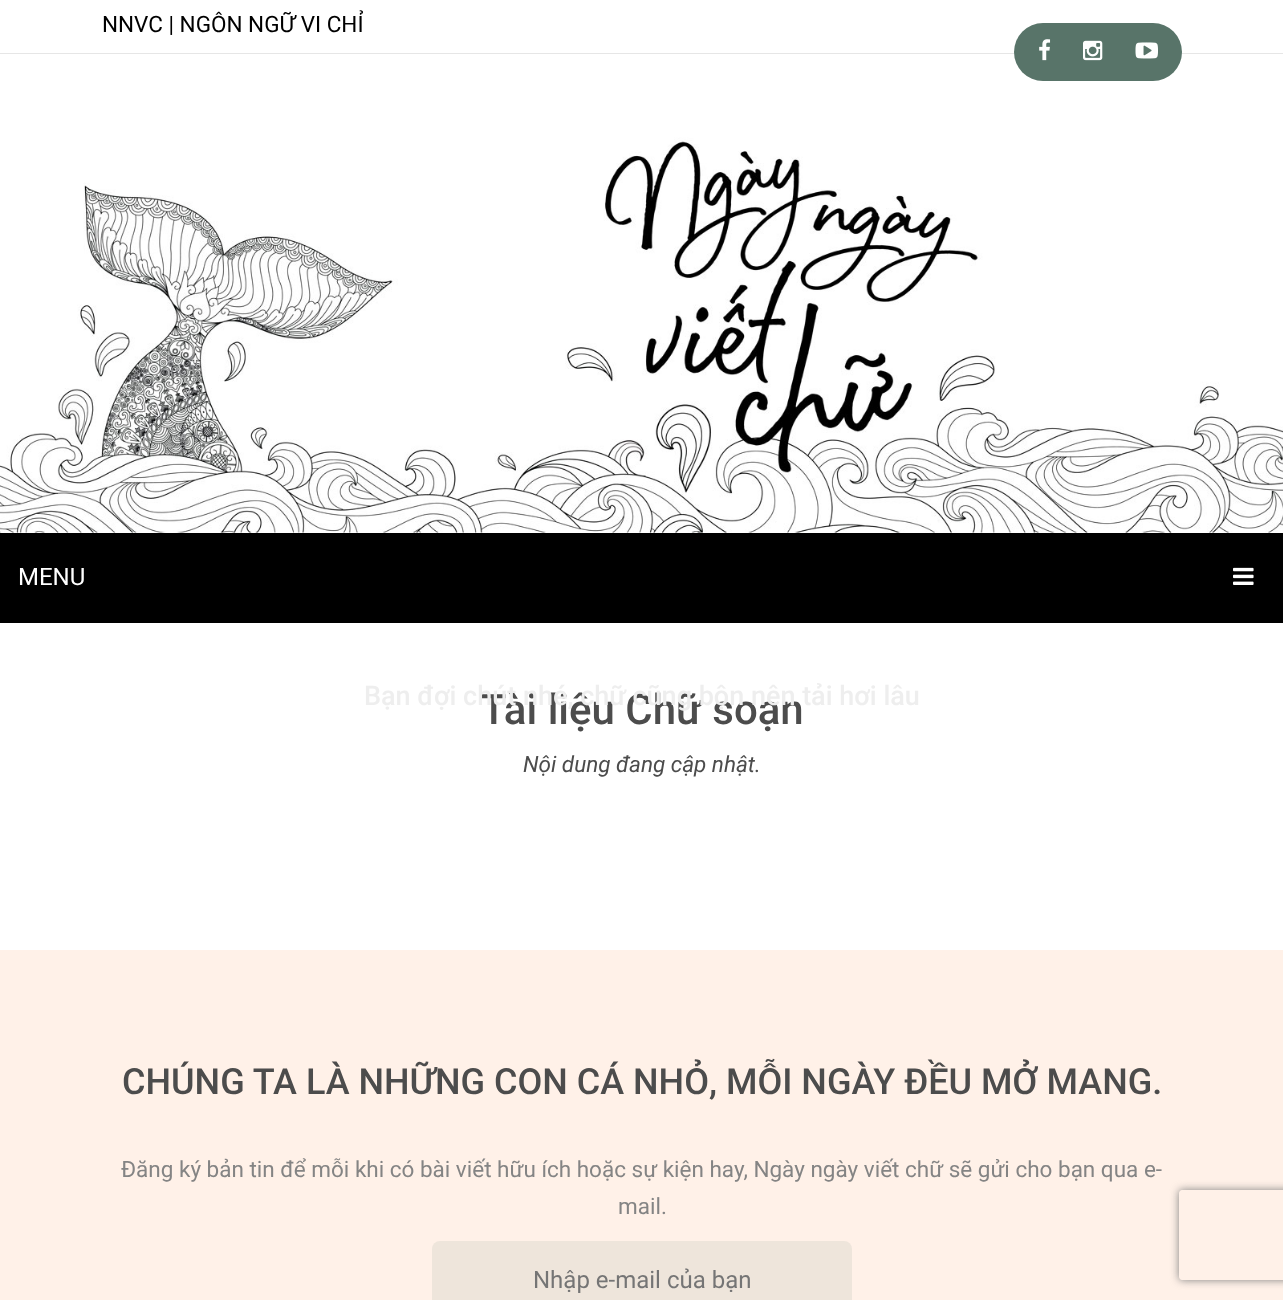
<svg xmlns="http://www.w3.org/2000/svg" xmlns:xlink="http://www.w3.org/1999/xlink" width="1283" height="1300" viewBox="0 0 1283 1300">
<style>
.cls-1{font:22.5px Roboto;fill:#000000}
.cls-2{font:24px Roboto;fill:#ffffff}
.cls-3{font:500 42px Roboto;fill:#4c4c4c}
.cls-4{font:italic 22.5px Roboto;fill:#4c4c4c}
.cls-5{font:500 36px Roboto;fill:#4c4c4c}
.cls-6{font:22.5px Roboto;fill:#848484}
.cls-7{font:24px Roboto;fill:#757575}
.cls-8{font:500 27px Roboto;fill:#eeeeee}
</style>
<defs>
<clipPath id="clip1"><path d="M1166 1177H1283V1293H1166ZM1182 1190H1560C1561.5 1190 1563 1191.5 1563 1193V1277C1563 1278.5 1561.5 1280 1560 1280H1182C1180.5 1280 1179 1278.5 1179 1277V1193C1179 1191.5 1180.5 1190 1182 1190Z" clip-rule="evenodd"/></clipPath>
</defs>
<rect width="100%" height="100%" fill="#ffffff"/>
<rect fill="#e6e6e6" x="0" y="53" width="1283" height="1"/>
<image xlink:href="image3.png" x="0" y="54" width="1283" height="479"/>
<rect fill="#587469" x="1014" y="23" width="168" height="58" rx="29"/>
<image xlink:href="image0.png" x="1039" y="39" width="12" height="22"/>
<image xlink:href="image1.png" x="1083" y="40" width="20" height="21"/>
<image xlink:href="image2.png" x="1135" y="42" width="23" height="17"/>
<rect fill="#000000" x="0" y="533" width="1283" height="90"/>
<image xlink:href="image4.png" x="1233" y="567" width="21" height="18"/>
<rect fill="#fff1e8" x="0" y="950" width="1283" height="350"/>
<rect fill="#eee5db" x="432" y="1241" width="420" height="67" rx="8"/>
<g clip-path="url(#clip1)">
<rect fill="#808080" filter="blur(4px)" x="1179" y="1190" width="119" height="90" rx="3"/>
</g>
<text class="cls-1" x="102" y="32">NNVC | NGÔN NGỮ VI CHỈ</text>
<text class="cls-2" x="18" y="585">MENU</text>
<text class="cls-3" x="481" y="724">Tài liệu Chữ soạn</text>
<text class="cls-4" x="523" y="772">Nội dung đang cập nhật.</text>
<text class="cls-5" x="122" y="1094">CHÚNG TA LÀ NHỮNG CON CÁ NHỎ, MỖI NGÀY ĐỀU MỞ MANG.</text>
<text class="cls-6" x="121" y="1177">Đăng ký bản tin để mỗi khi có bài viết hữu ích hoặc sự kiện hay, Ngày ngày viết chữ sẽ gửi cho bạn qua e-</text>
<text class="cls-6" x="618" y="1214">mail.</text>
<text class="cls-7" x="533" y="1288">Nhập e-mail của bạn</text>
<text class="cls-8" x="364" y="705">Bạn đợi chút nhé, chữ cũng bộn nên tải hơi lâu</text>
</svg>
